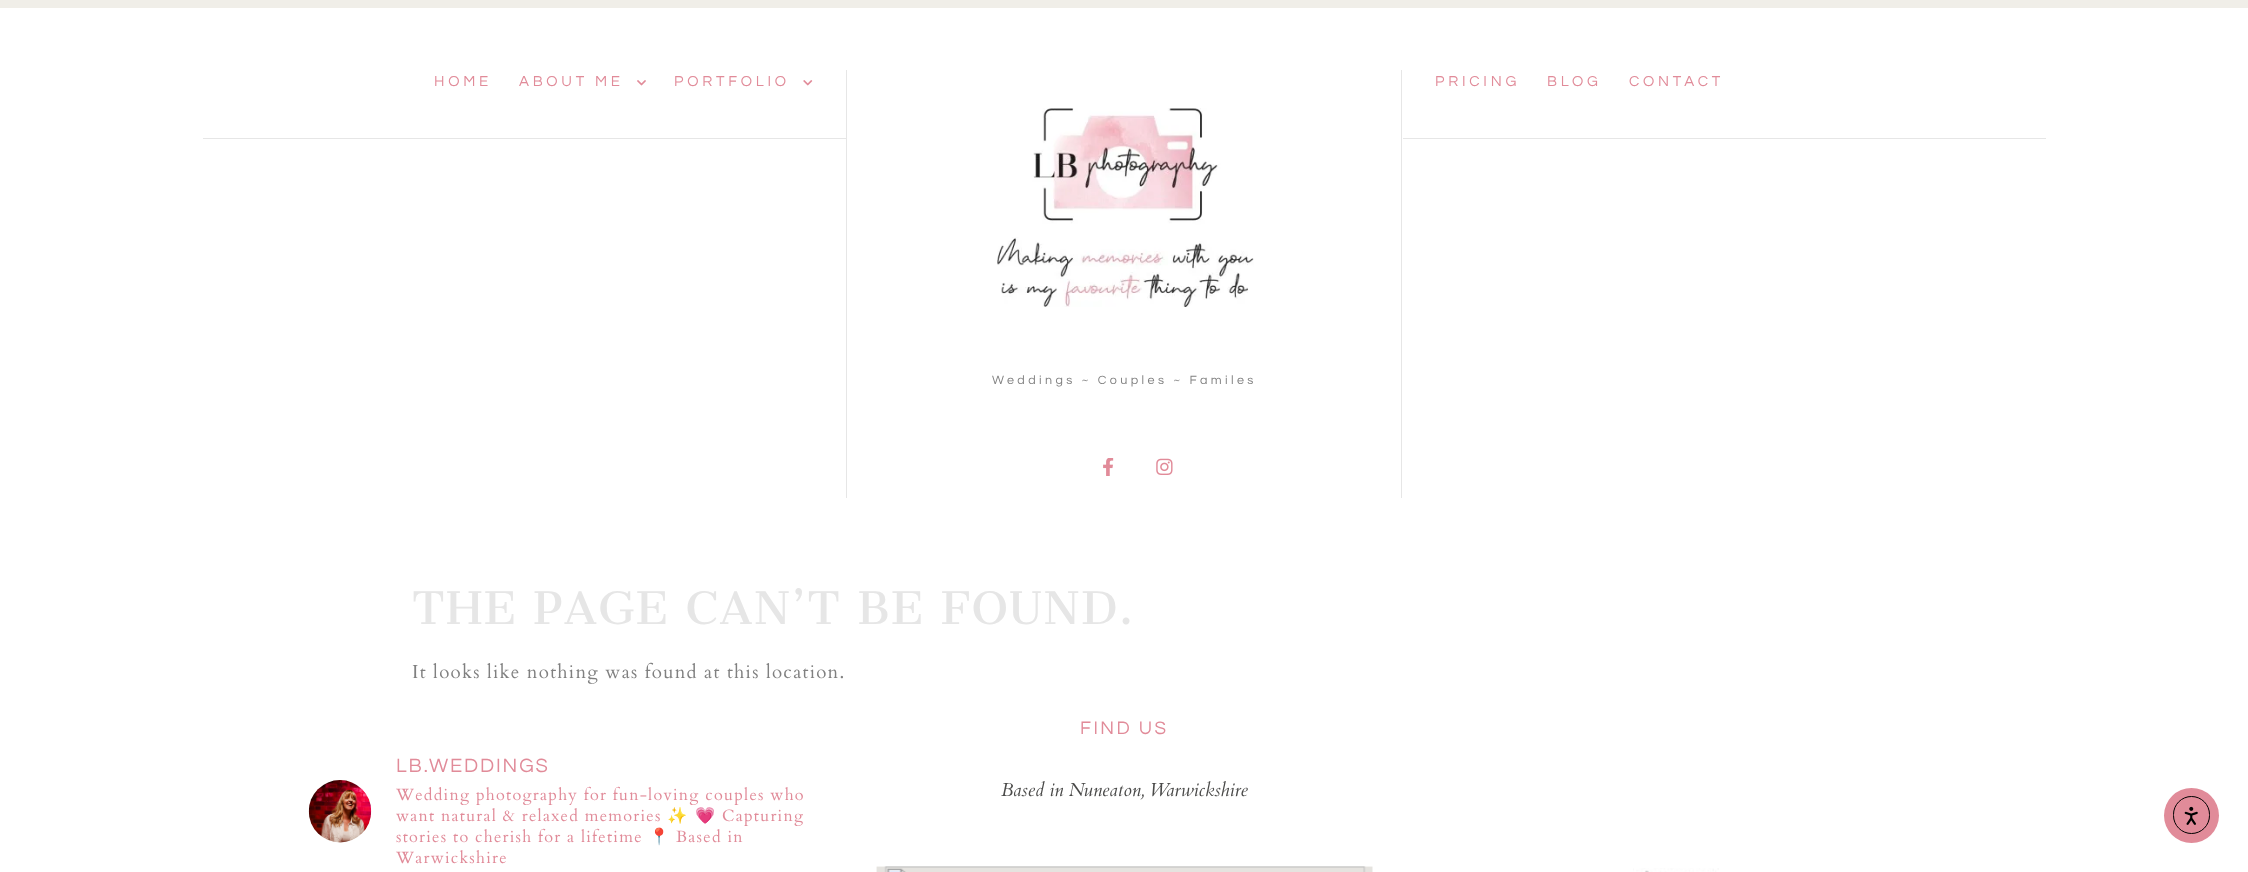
<svg xmlns="http://www.w3.org/2000/svg" xmlns:xlink="http://www.w3.org/1999/xlink" width="2248" height="872" viewBox="0 0 2248 872">
<style>
.cls-1{font:15px Questrial;letter-spacing:3.75px;fill:#e18b99}
.cls-2{font:12.5px Questrial;letter-spacing:3.4px;fill:#808080}
.cls-3{font:43.75px Cantata One;letter-spacing:1.25px;fill:#e6e6e6}
.cls-4{font:18.75px Cardo;letter-spacing:1.25px;fill:#808080}
.cls-5{font:20px Questrial;letter-spacing:1.9px;fill:#e18b99}
.cls-6{font:16.25px Cardo;letter-spacing:1.25px;fill:#e18b99}
.cls-7{font:16.25px Noto Color Emoji;letter-spacing:1.25px;fill:#e18b99}
.cls-8{font:18.75px Questrial;letter-spacing:2.5px;fill:#e18b99}
.cls-9{font:italic 18.75px Cardo;fill:#4a4a49}
</style>
<rect width="100%" height="100%" fill="#ffffff"/>
<rect fill="#f0eee8" x="0" y="0" width="2248" height="8"/>
<rect fill="#e6e6e6" x="846" y="70" width="1" height="428"/>
<rect fill="#e6e6e6" x="203" y="138" width="643" height="1"/>
<image xlink:href="image0.png" x="637" y="80" width="9" height="6"/>
<image xlink:href="image1.png" x="803" y="80" width="10" height="6"/>
<rect fill="#e6e6e6" x="1401" y="70" width="1" height="428"/>
<rect fill="#e6e6e6" x="1403" y="138" width="643" height="1"/>
<image xlink:href="image2.png" x="997" y="108" width="257" height="199"/>
<image xlink:href="image3.png" x="1103" y="458" width="11" height="18"/>
<image xlink:href="image4.png" x="1156" y="458" width="17" height="17"/>
<image xlink:href="image5.png" x="308" y="780" width="64" height="63"/>
<image xlink:href="image6.png" x="876" y="866" width="497" height="6"/>
<image xlink:href="image7.png" x="1633" y="868" width="86" height="4"/>
<circle fill="#e18b99" cx="2191.5" cy="815.5" r="27.5"/>
<rect fill="none" stroke="#000000" x="2173.5" y="796.5" width="36" height="37" rx="18"/>
<image xlink:href="image8.png" x="2184" y="806" width="14" height="19"/>
<text class="cls-1" x="434" y="86">HOME</text>
<text class="cls-1" x="519" y="86">ABOUT ME</text>
<text class="cls-1" x="674" y="86">PORTFOLIO</text>
<text class="cls-1" x="1435" y="86">PRICING</text>
<text class="cls-1" x="1547" y="86">BLOG</text>
<text class="cls-1" x="1629" y="86">CONTACT</text>
<text class="cls-2" x="992" y="384">Weddings ~ Couples ~ Familes</text>
<text class="cls-3" x="412" y="624">THE PAGE CAN’T BE FOUND.</text>
<text class="cls-4" x="412" y="678">It looks like nothing was found at this location.</text>
<text class="cls-5" x="396" y="772">LB.WEDDINGS</text>
<text class="cls-6"><tspan x="396" y="800">Wedding photography for fun-loving couples who</tspan><tspan x="396" y="821">want natural &amp; relaxed memories</tspan></text>
<text class="cls-7" x="667" y="821">✨</text>
<text class="cls-7" x="695" y="821">💗</text>
<text class="cls-6" x="722" y="821">Capturing</text>
<text class="cls-6" x="396" y="842">stories to cherish for a lifetime</text>
<text class="cls-7" x="649" y="842">📍</text>
<text class="cls-6" x="676" y="842">Based in</text>
<text class="cls-6" x="396" y="863">Warwickshire</text>
<text class="cls-8" x="1080" y="734">FIND US</text>
<text class="cls-9" x="1001" y="796">Based in Nuneaton, Warwickshire</text>
</svg>
